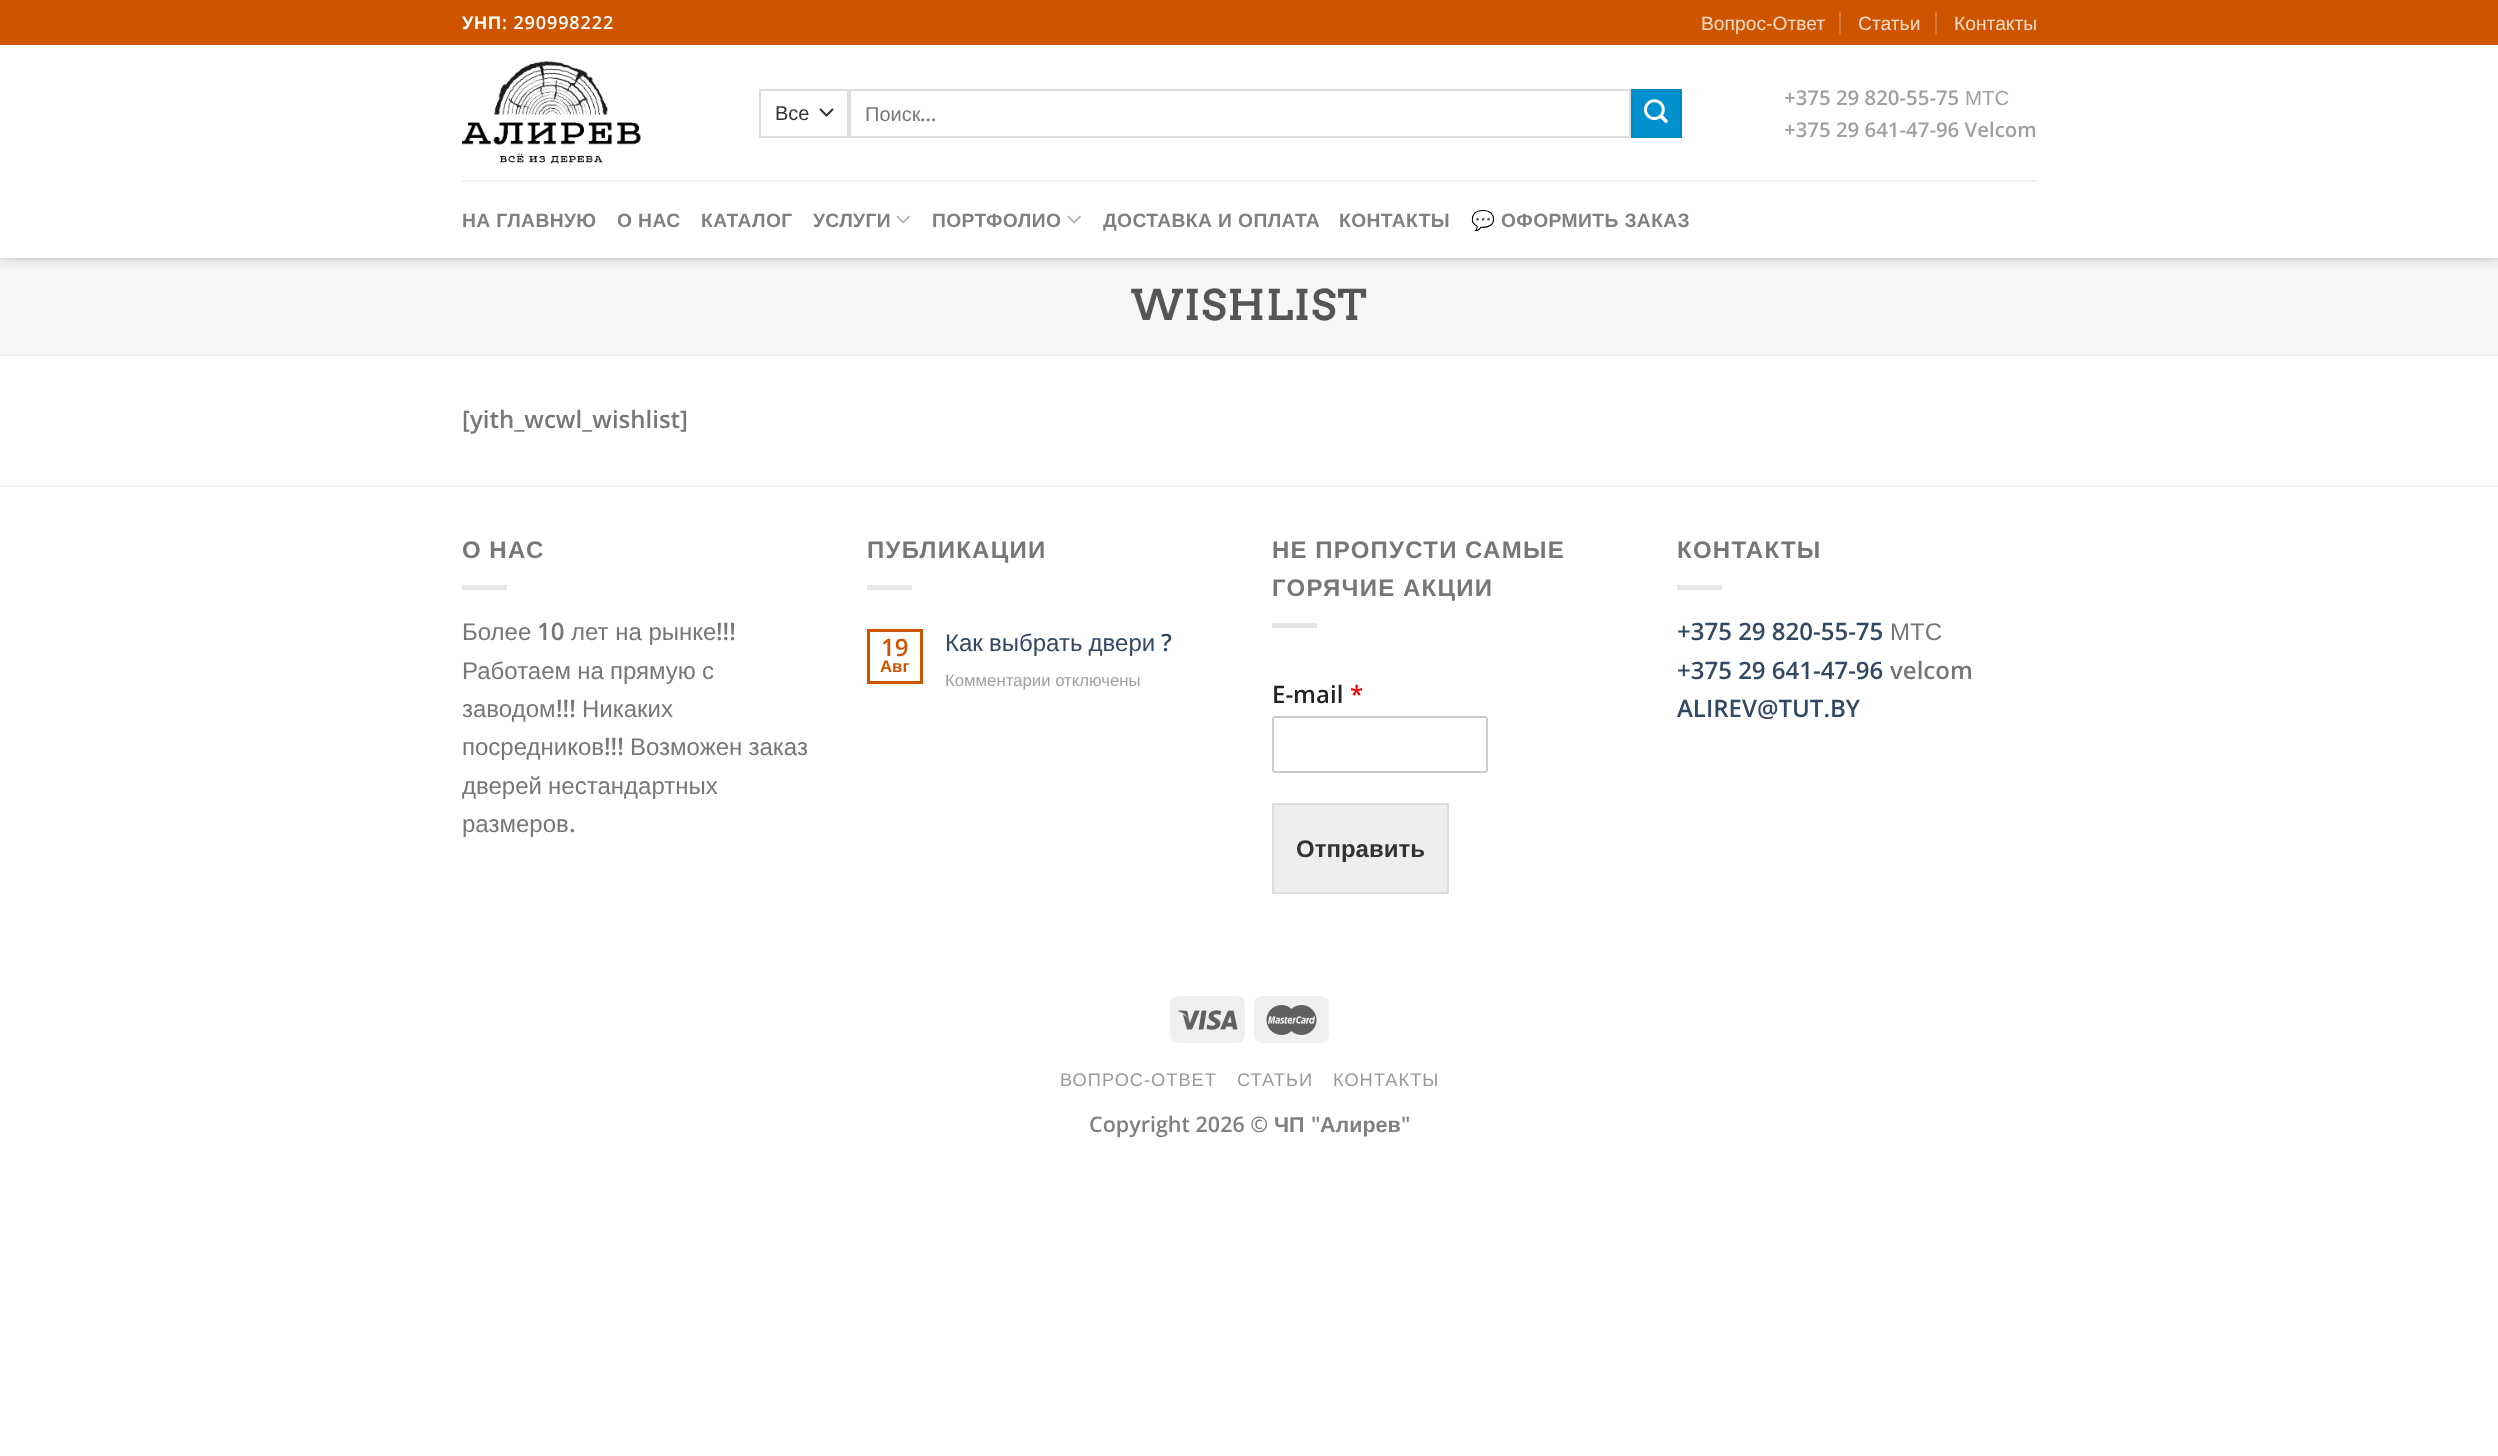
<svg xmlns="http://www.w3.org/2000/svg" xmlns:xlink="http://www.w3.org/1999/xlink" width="2498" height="1456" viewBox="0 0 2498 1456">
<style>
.cls-1{font:bold 18px Liberation Sans;letter-spacing:0.9px;fill:#ffffff}
.cls-2{font:600 18px Open Sans;letter-spacing:0.9px;fill:#ffffff}
.cls-3{font:19.25px Liberation Sans;fill:#f5ddcc}
.cls-4{font:20px Liberation Sans;fill:#333333}
.cls-5{font:20px Liberation Sans;fill:#777777}
.cls-6{font:600 20px Open Sans;fill:#777777}
.cls-7{font:600 20.4px Open Sans;fill:#a0a0a0}
.cls-8{font:20.4px Liberation Sans;fill:#a0a0a0}
.cls-9{font:bold 19.25px Liberation Sans;letter-spacing:0.4px;fill:#808080}
.cls-10{font:bold 19.25px Noto Color Emoji;letter-spacing:0.4px;fill:#808080}
.cls-11{font:bold 40.75px Arvo;letter-spacing:2px;fill:#555555}
.cls-12{font:600 24px Open Sans;fill:#777777}
.cls-13{font:bold 24px Liberation Sans;letter-spacing:1.25px;fill:#777777}
.cls-14{font:24px Liberation Sans;fill:#777777}
.cls-15{font:600 24px Open Sans;fill:#ce5400}
.cls-16{font:bold 16.75px Liberation Sans;fill:#ce5400}
.cls-17{font:24px Liberation Sans;fill:#334862}
.cls-18{font:600 24px Open Sans;fill:#334862}
.cls-19{font:16.75px Liberation Sans;fill:#a0a0a0}
.cls-20{font:600 24px Open Sans;fill:#222222}
.cls-21{font:600 24px Open Sans;fill:#ff0000}
.cls-22{font:bold 24px Liberation Sans;fill:#333333}
.cls-23{font:18.25px Liberation Sans;letter-spacing:1px;fill:#999999}
.cls-24{font:600 21.5px Open Sans;fill:#808080}
.cls-25{font:bold 21.5px Liberation Sans;fill:#808080}
</style>
<defs>
<clipPath id="clip1"><rect x="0" y="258" width="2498" height="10"/></clipPath>
</defs>
<rect width="100%" height="100%" fill="#ffffff"/>
<rect fill="#f7f7f7" x="0" y="260" width="2498" height="94"/>
<rect fill="#ececec" x="0" y="258" width="2498" height="2"/>
<g clip-path="url(#clip1)">
<rect fill="#000000" fill-opacity="0.15" filter="blur(7.5px)" x="2" y="2" width="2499" height="258"/>
</g>
<rect fill="#ce5400" x="0" y="0" width="2498" height="45"/>
<rect fill="#d87633" x="1839" y="12" width="2" height="23"/>
<rect fill="#d87633" x="1935" y="12" width="2" height="23"/>
<image xlink:href="image0.png" x="462" y="61" width="179" height="103"/>
<path fill="none" stroke="#333333" stroke-width="2" stroke-linecap="round" stroke-linejoin="round" d="M820.5 109.5L826.5 115.5L832.5 109.5"/>
<rect fill="none" stroke="#dddddd" stroke-width="2" x="760" y="90" width="88" height="47"/>
<rect fill="none" stroke="#dddddd" stroke-width="2" x="850" y="90" width="780" height="47"/>
<rect fill="#0091ce" stroke="#008ac4" stroke-width="2" x="1632" y="90" width="49" height="47"/>
<image xlink:href="image1.png" x="1644" y="99" width="24" height="24"/>
<rect fill="#f1f1f1" x="462" y="180" width="1575" height="2"/>
<image xlink:href="image2.png" x="896" y="215" width="14" height="9"/>
<image xlink:href="image2.png" x="1067" y="215" width="14" height="9"/>
<rect fill="#ececec" x="0" y="354" width="2498" height="2"/>
<rect fill="#f2f2f2" x="0" y="485" width="2498" height="2"/>
<rect fill="#e6e6e6" x="462" y="585" width="45" height="5"/>
<rect fill="#e6e6e6" x="867" y="585" width="45" height="5"/>
<rect fill="none" stroke="#ce5400" stroke-width="3" x="868.5" y="630.5" width="53" height="52"/>
<rect fill="#e6e6e6" x="1272" y="623" width="45" height="5"/>
<rect fill="none" stroke="#cccccc" stroke-width="2" x="1273" y="717" width="214" height="55" rx="2"/>
<rect fill="#eeeeee" stroke="#dddddd" stroke-width="2" x="1273" y="804" width="175" height="89"/>
<rect fill="#e6e6e6" x="1677" y="585" width="45" height="5"/>
<rect fill="#f0f0f0" x="1170" y="996" width="75" height="47" rx="8"/>
<image xlink:href="image3.png" x="1178" y="1010" width="60" height="20"/>
<rect fill="#f0f0f0" x="1254" y="996" width="75" height="47" rx="8"/>
<image xlink:href="image4.png" x="1266" y="1005" width="51" height="30"/>
<text class="cls-1" x="462" y="29">УНП</text>
<text class="cls-2" x="502" y="29">: 290998222</text>
<text class="cls-3" x="1701" y="30">Вопрос-Ответ</text>
<text class="cls-3" x="1858" y="30">Статьи</text>
<text class="cls-3" x="1954" y="30">Контакты</text>
<text class="cls-4" x="775" y="120">Все</text>
<text class="cls-5" x="865" y="121">Поиск</text>
<text class="cls-6" x="920" y="121">…</text>
<text class="cls-7" x="1784" y="105">+375 29 820-55-75</text>
<text class="cls-8" x="1965" y="105">МТС</text>
<text class="cls-7" x="1784" y="137">+375 29 641-47-96 Velcom</text>
<text class="cls-9" x="462" y="227">НА ГЛАВНУЮ</text>
<text class="cls-9" x="617" y="227">О НАС</text>
<text class="cls-9" x="701" y="227">КАТАЛОГ</text>
<text class="cls-9" x="813" y="227">УСЛУГИ</text>
<text class="cls-9" x="932" y="227">ПОРТФОЛИО</text>
<text class="cls-9" x="1103" y="227">ДОСТАВКА И ОПЛАТА</text>
<text class="cls-9" x="1339" y="227">КОНТАКТЫ</text>
<text class="cls-10" x="1471" y="227">💬</text>
<text class="cls-9" x="1501" y="227">ОФОРМИТЬ ЗАКАЗ</text>
<text class="cls-11" x="1131" y="320">WISHLIST</text>
<text class="cls-12" x="462" y="428">[yith_wcwl_wishlist]</text>
<text class="cls-13" x="462" y="558" word-spacing="-0.5">О НАС</text>
<text class="cls-14" x="462" y="640">Более</text>
<text class="cls-12" x="537" y="640">10</text>
<text class="cls-14" x="571" y="640">лет на рынке</text>
<text class="cls-12" x="716" y="640">!!!</text>
<text class="cls-14"><tspan x="462" y="679" word-spacing="-0.5">Работаем на прямую с</tspan><tspan x="462" y="717">заводом</tspan></text>
<text class="cls-12" x="556" y="717">!!!</text>
<text class="cls-14" x="582" y="717">Никаких</text>
<text class="cls-14" x="462" y="755">посредников</text>
<text class="cls-12" x="604" y="755">!!!</text>
<text class="cls-14" x="630" y="755" word-spacing="-0.5">Возможен заказ</text>
<text class="cls-14"><tspan x="462" y="794" word-spacing="-0.5">дверей нестандартных</tspan><tspan x="462" y="832">размеров</tspan></text>
<text class="cls-12" x="569" y="832">.</text>
<text class="cls-13" x="867" y="558">ПУБЛИКАЦИИ</text>
<text class="cls-15" x="881" y="656">19</text>
<text class="cls-16" x="880" y="672">Авг</text>
<text class="cls-17" x="945" y="651" word-spacing="-0.5">Как выбрать двери</text>
<text class="cls-18" x="1161" y="651">?</text>
<text class="cls-19" x="945" y="686">Комментарии отключены</text>
<text class="cls-13"><tspan x="1272" y="558" word-spacing="-0.5">НЕ ПРОПУСТИ САМЫЕ</tspan><tspan x="1272" y="596" word-spacing="-0.5">ГОРЯЧИЕ АКЦИИ</tspan></text>
<text class="cls-20" x="1272" y="703">E-mail</text>
<text class="cls-21" x="1350" y="703">*</text>
<text class="cls-22" x="1296" y="857">Отправить</text>
<text class="cls-13" x="1677" y="558">КОНТАКТЫ</text>
<text class="cls-18" x="1677" y="640">+375 29 820-55-75</text>
<text class="cls-14" x="1890" y="640">МТС</text>
<text class="cls-18" x="1677" y="679">+375 29 641-47-96</text>
<text class="cls-12" x="1890" y="679">velcom</text>
<text class="cls-18" x="1677" y="717">ALIREV@TUT.BY</text>
<text class="cls-23" x="1060" y="1086">ВОПРОС-ОТВЕТ</text>
<text class="cls-23" x="1237" y="1086">СТАТЬИ</text>
<text class="cls-23" x="1333" y="1086">КОНТАКТЫ</text>
<text class="cls-24" x="1089" y="1132">Copyright 2026 ©</text>
<text class="cls-25" x="1274" y="1132">ЧП</text>
<text class="cls-24" x="1311" y="1132">"</text>
<text class="cls-25" x="1320" y="1132">Алирев</text>
<text class="cls-24" x="1401" y="1132">"</text>
</svg>
